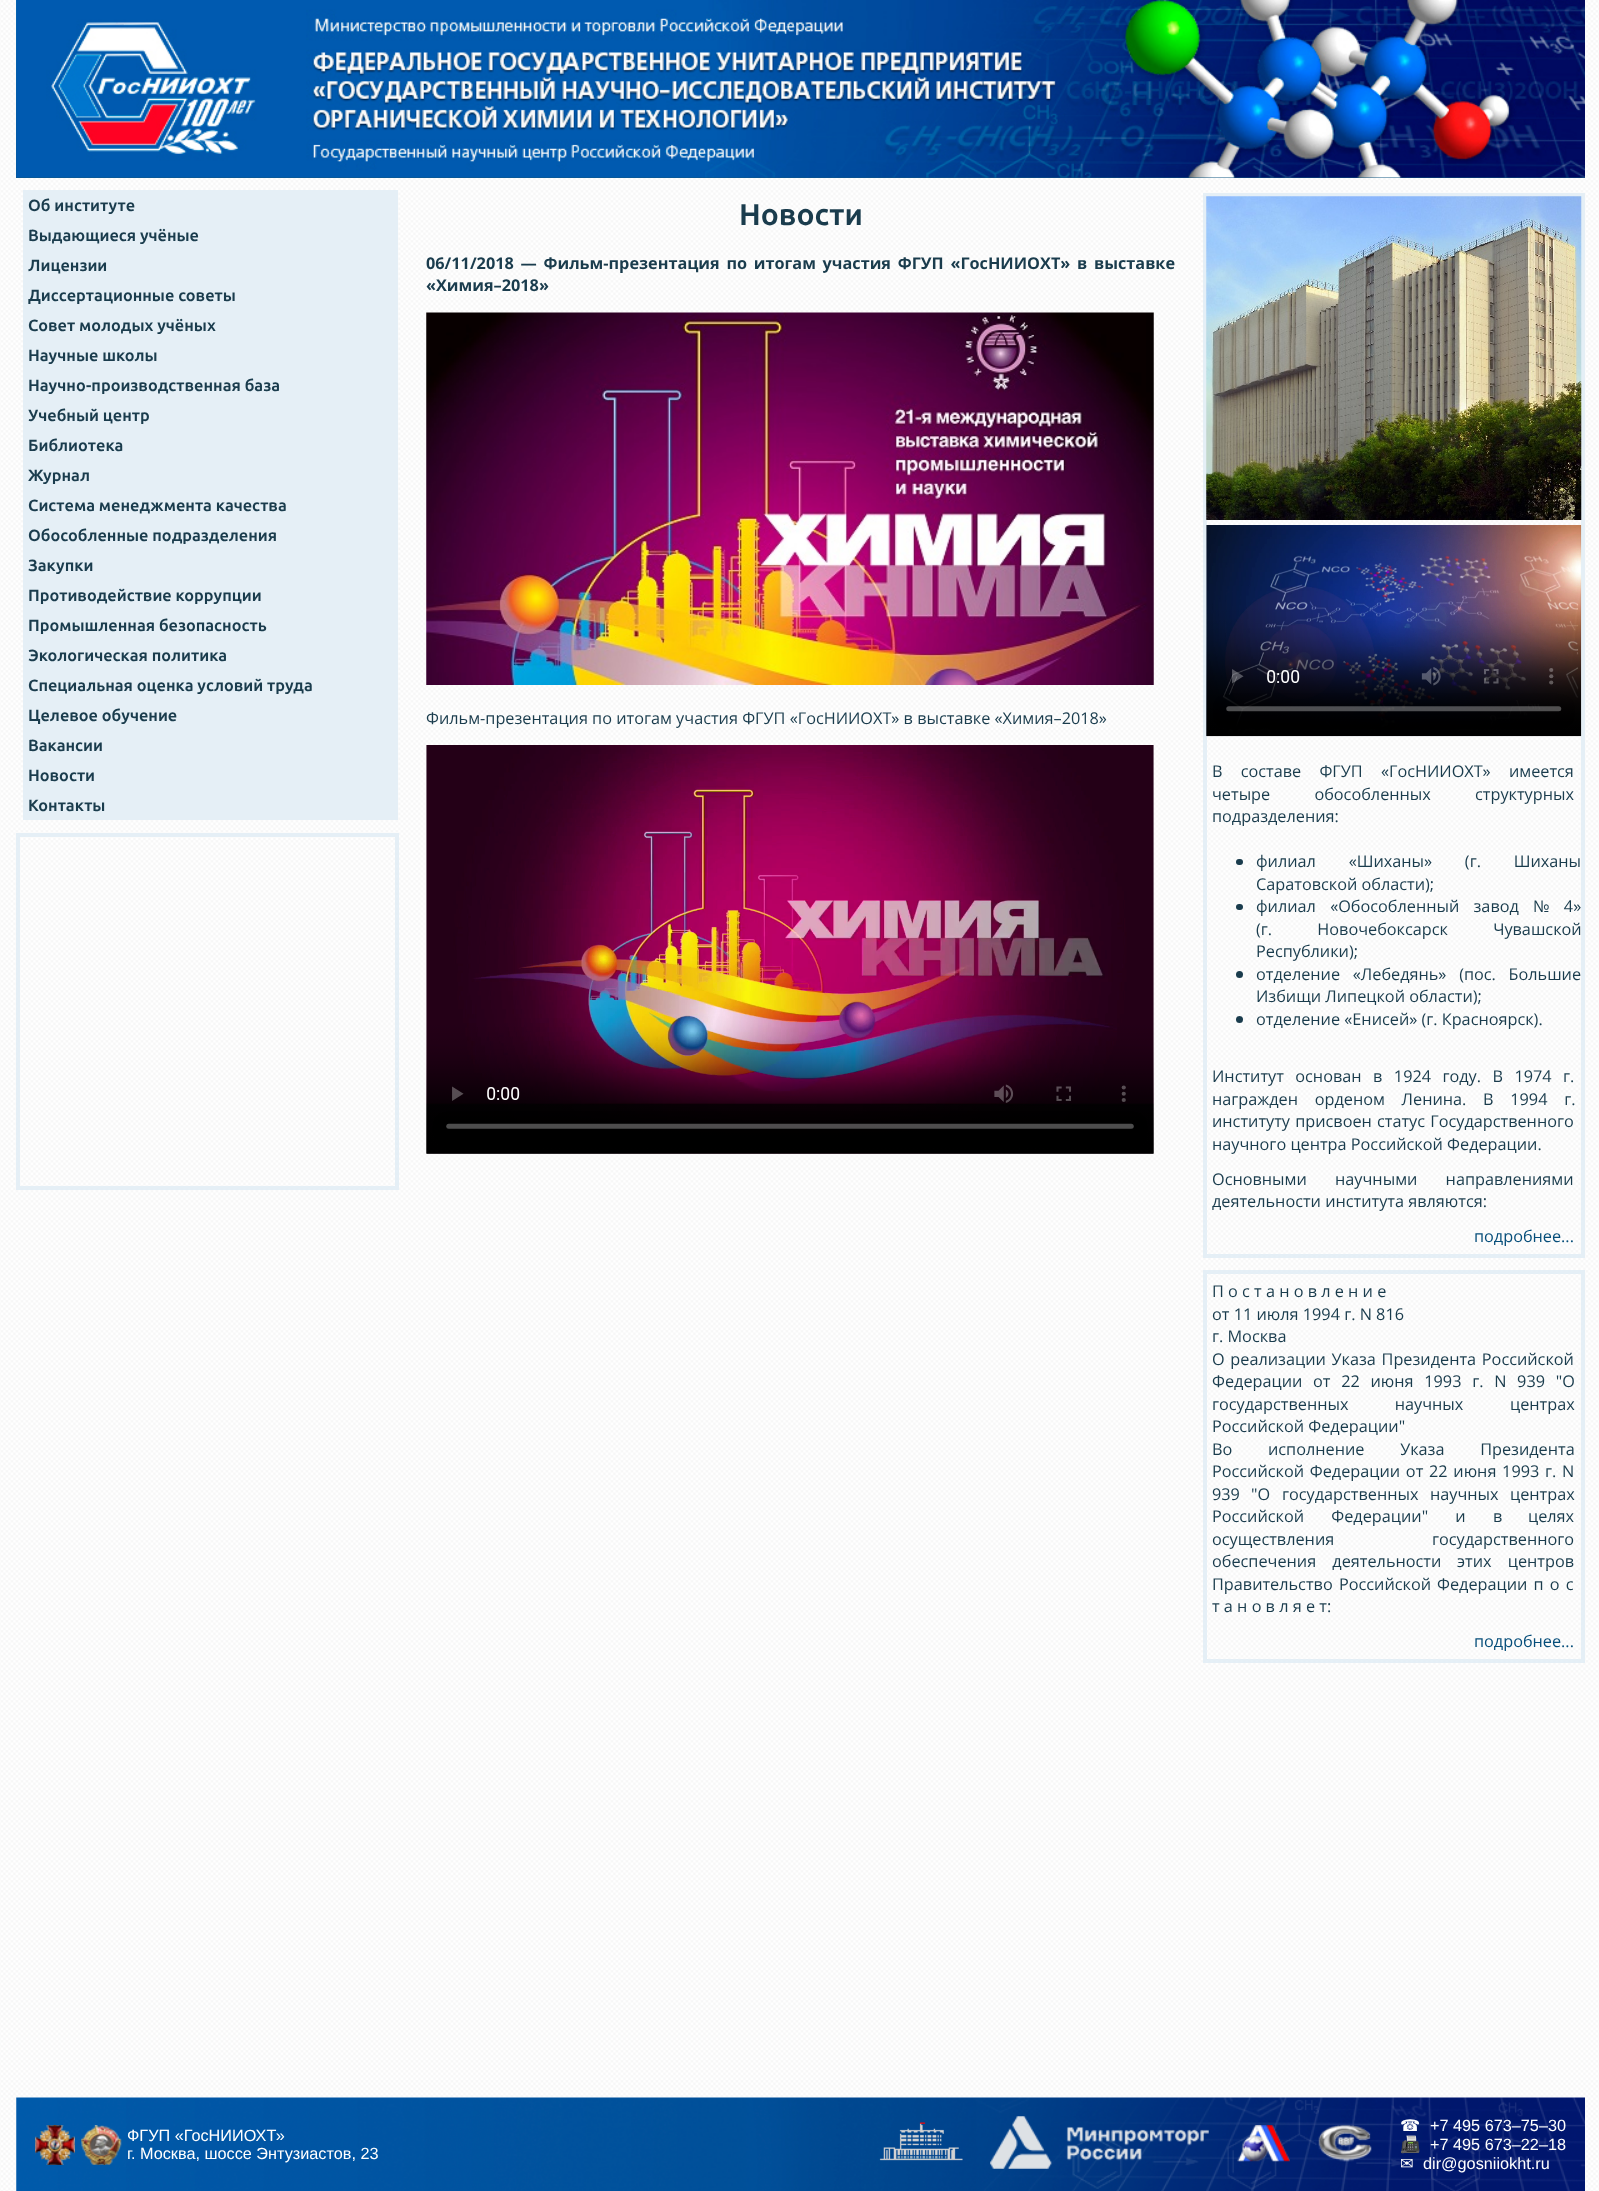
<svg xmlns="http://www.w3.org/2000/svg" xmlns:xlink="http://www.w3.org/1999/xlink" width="1599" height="2191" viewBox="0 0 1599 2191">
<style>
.cls-1{font:bold 16.25px Ubuntu;fill:#1a3c4d}
.cls-2{font:bold 30px Ubuntu;fill:#1a3c4d}
.cls-3{font:bold 16.25px Open Sans;fill:#1a3c4d}
.cls-4{font:16.25px Open Sans;fill:#1a3c4d}
.cls-5{font:16.25px Open Sans;fill:#064e7a}
.cls-6{font:16.25px Liberation Sans;fill:#ffffff}
.cls-7{font:16.25px DejaVu Sans;fill:#ffffff}
.cls-8{font:16.25px Noto Color Emoji;fill:#ffffff}
</style>
<defs>
<linearGradient id="g1" gradientUnits="userSpaceOnUse" x1="801" y1="178" x2="801" y2="0"><stop offset="0" stop-color="#105681"/><stop offset="1" stop-color="#1b7fb2"/></linearGradient>
</defs>
<rect width="100%" height="100%" fill="#ffffff"/>
<image xlink:href="image0.png" x="0" y="0" width="1599" height="2191"/>
<rect fill="url(#g1)" x="16" y="0" width="1569" height="178"/>
<image xlink:href="image1.png" x="16" y="0" width="1569" height="178"/>
<rect fill="#e5eff6" x="23" y="190" width="375" height="630"/>
<rect fill="none" stroke="#e5eff6" stroke-width="4" x="18" y="835" width="379" height="353"/>
<image xlink:href="image2.png" x="426" y="312" width="728" height="373"/>
<image xlink:href="image3.png" x="426" y="745" width="728" height="409"/>
<rect fill="none" stroke="#e5eff6" stroke-width="4" x="1205" y="195" width="378" height="1061"/>
<image xlink:href="image4.png" x="1206" y="196" width="376" height="324"/>
<image xlink:href="image5.png" x="1206" y="525" width="376" height="212"/>
<rect fill="#1a3c4d" x="1236" y="859" width="7" height="6" rx="3"/>
<rect fill="#1a3c4d" x="1236" y="904" width="7" height="6" rx="3"/>
<circle fill="#1a3c4d" cx="1239.5" cy="974.5" r="3.5"/>
<circle fill="#1a3c4d" cx="1239.5" cy="1019.5" r="3.5"/>
<rect fill="none" stroke="#e5eff6" stroke-width="4" x="1205" y="1272" width="378" height="389"/>
<image xlink:href="image6.png" x="16" y="2097" width="1569" height="94"/>
<image xlink:href="image7.png" x="35" y="2125" width="40" height="40"/>
<image xlink:href="image8.png" x="81" y="2125" width="41" height="40"/>
<image xlink:href="image9.png" x="879" y="2122" width="84" height="39"/>
<image xlink:href="image10.png" x="990" y="2116" width="219" height="53"/>
<image xlink:href="image11.png" x="1237" y="2125" width="53" height="37"/>
<image xlink:href="image12.png" x="1318" y="2124" width="54" height="38"/>
<text class="cls-1"><tspan x="28" y="211">Об институте</tspan><tspan x="28" y="241">Выдающиеся учёные</tspan><tspan x="28" y="271">Лицензии</tspan><tspan x="28" y="301">Диссертационные советы</tspan><tspan x="28" y="331">Совет молодых учёных</tspan><tspan x="28" y="361">Научные школы</tspan><tspan x="28" y="391">Научно-производственная база</tspan><tspan x="28" y="421">Учебный центр</tspan><tspan x="28" y="451">Библиотека</tspan><tspan x="28" y="481">Журнал</tspan><tspan x="28" y="511">Система менеджмента качества</tspan><tspan x="28" y="541">Обособленные подразделения</tspan><tspan x="28" y="571">Закупки</tspan><tspan x="28" y="601">Противодействие коррупции</tspan><tspan x="28" y="631">Промышленная безопасность</tspan><tspan x="28" y="661">Экологическая политика</tspan><tspan x="28" y="691">Специальная оценка условий труда</tspan><tspan x="28" y="721">Целевое обучение</tspan><tspan x="28" y="751">Вакансии</tspan><tspan x="28" y="781">Новости</tspan><tspan x="28" y="811">Контакты</tspan></text>
<text class="cls-2" x="739" y="225">Новости</text>
<text class="cls-3"><tspan x="426" y="269" word-spacing="2.5">06/11/2018 — Фильм-презентация по итогам участия ФГУП «ГосНИИОХТ» в выставке</tspan><tspan x="426" y="291">«Химия–2018»</tspan></text>
<text class="cls-4" x="426" y="724">Фильм-презентация по итогам участия ФГУП «ГосНИИОХТ» в выставке «Химия–2018»</text>
<text class="cls-4"><tspan x="1212" y="777" word-spacing="14">В составе ФГУП «ГосНИИОХТ» имеется</tspan><tspan x="1212" y="800" word-spacing="40">четыре обособленных структурных</tspan><tspan x="1212" y="822">подразделения:</tspan></text>
<text class="cls-4"><tspan x="1256" y="867" word-spacing="28.5">филиал «Шиханы» (г. Шиханы</tspan><tspan x="1256" y="890">Саратовской области);</tspan><tspan x="1256" y="912" word-spacing="10">филиал «Обособленный завод № 4»</tspan><tspan x="1256" y="935" word-spacing="41">(г. Новочебоксарск Чувашской</tspan><tspan x="1256" y="957">Республики);</tspan><tspan x="1256" y="980" word-spacing="8.5">отделение «Лебедянь» (пос. Большие</tspan><tspan x="1256" y="1002">Избищи Липецкой области);</tspan><tspan x="1256" y="1025">отделение «Енисей» (г. Красноярск).</tspan></text>
<text class="cls-4"><tspan x="1212" y="1082" word-spacing="7.25">Институт основан в 1924 году. В 1974 г.</tspan><tspan x="1212" y="1105" word-spacing="12.5">награжден орденом Ленина. В 1994 г.</tspan><tspan x="1212" y="1127" word-spacing="1">институту присвоен</tspan></text>
<text class="cls-4" x="1377" y="1127" word-spacing="1">статус Государственного</text>
<text class="cls-4" x="1212" y="1150">научного центра Российской Федерации.</text>
<text class="cls-4"><tspan x="1212" y="1185" word-spacing="24">Основными научными направлениями</tspan><tspan x="1212" y="1207">деятельности института являются:</tspan></text>
<text class="cls-5" x="1474" y="1242">подробнее...</text>
<text class="cls-4"><tspan x="1212" y="1297">П о с т а н о в л е н и е</tspan><tspan x="1212" y="1320">от 11 июля 1994 г. N 816</tspan><tspan x="1212" y="1342">г. Москва</tspan><tspan x="1212" y="1365" word-spacing="1.5">О реализации Указа Президента Российской</tspan><tspan x="1212" y="1387">Федерации</tspan></text>
<text class="cls-4" x="1313" y="1387" word-spacing="6.5">от 22 июня 1993 г. N 939 "О</text>
<text class="cls-4" x="1212" y="1410" word-spacing="42">государственных научных</text>
<text class="cls-4" x="1510" y="1410">центрах</text>
<text class="cls-4"><tspan x="1212" y="1432">Российской Федерации"</tspan><tspan x="1212" y="1455" word-spacing="31.5">Во исполнение Указа Президента</tspan><tspan x="1212" y="1477" word-spacing="1.5">Российской Федерации от 22 июня 1993</tspan></text>
<text class="cls-4" x="1545" y="1477">г.</text>
<text class="cls-4" x="1562" y="1477">N</text>
<text class="cls-4" x="1212" y="1500">939</text>
<text class="cls-4" x="1251" y="1500">"О</text>
<text class="cls-4" x="1282" y="1500">государственных</text>
<text class="cls-4" x="1430" y="1500">научных</text>
<text class="cls-4" x="1510" y="1500">центрах</text>
<text class="cls-4" x="1212" y="1522" word-spacing="23">Российской Федерации" и в</text>
<text class="cls-4" x="1528" y="1522">целях</text>
<text class="cls-4" x="1212" y="1545">осуществления</text>
<text class="cls-4" x="1432" y="1545">государственного</text>
<text class="cls-4" x="1212" y="1567" word-spacing="12">обеспечения деятельности</text>
<text class="cls-4" x="1457" y="1567" word-spacing="12">этих центров</text>
<text class="cls-4" x="1212" y="1590">Правительство</text>
<text class="cls-4" x="1339" y="1590">Российской</text>
<text class="cls-4" x="1437" y="1590" word-spacing="2">Федерации п о с</text>
<text class="cls-4" x="1212" y="1612">т а н о в л я е т:</text>
<text class="cls-5" x="1474" y="1647">подробнее...</text>
<text class="cls-6"><tspan x="127" y="2141">ФГУП «ГосНИИОХТ»</tspan><tspan x="127" y="2159">г. Москва, шоссе Энтузиастов, 23</tspan></text>
<text class="cls-7" x="1400" y="2131">☎</text>
<text class="cls-6" x="1430" y="2131">+7 495 673–75–30</text>
<text class="cls-8" x="1400" y="2150">📠</text>
<text class="cls-6" x="1430" y="2150">+7 495 673–22–18</text>
<text class="cls-7" x="1400" y="2169">✉</text>
<text class="cls-6" x="1423" y="2169">dir@gosniiokht.ru</text>
</svg>
